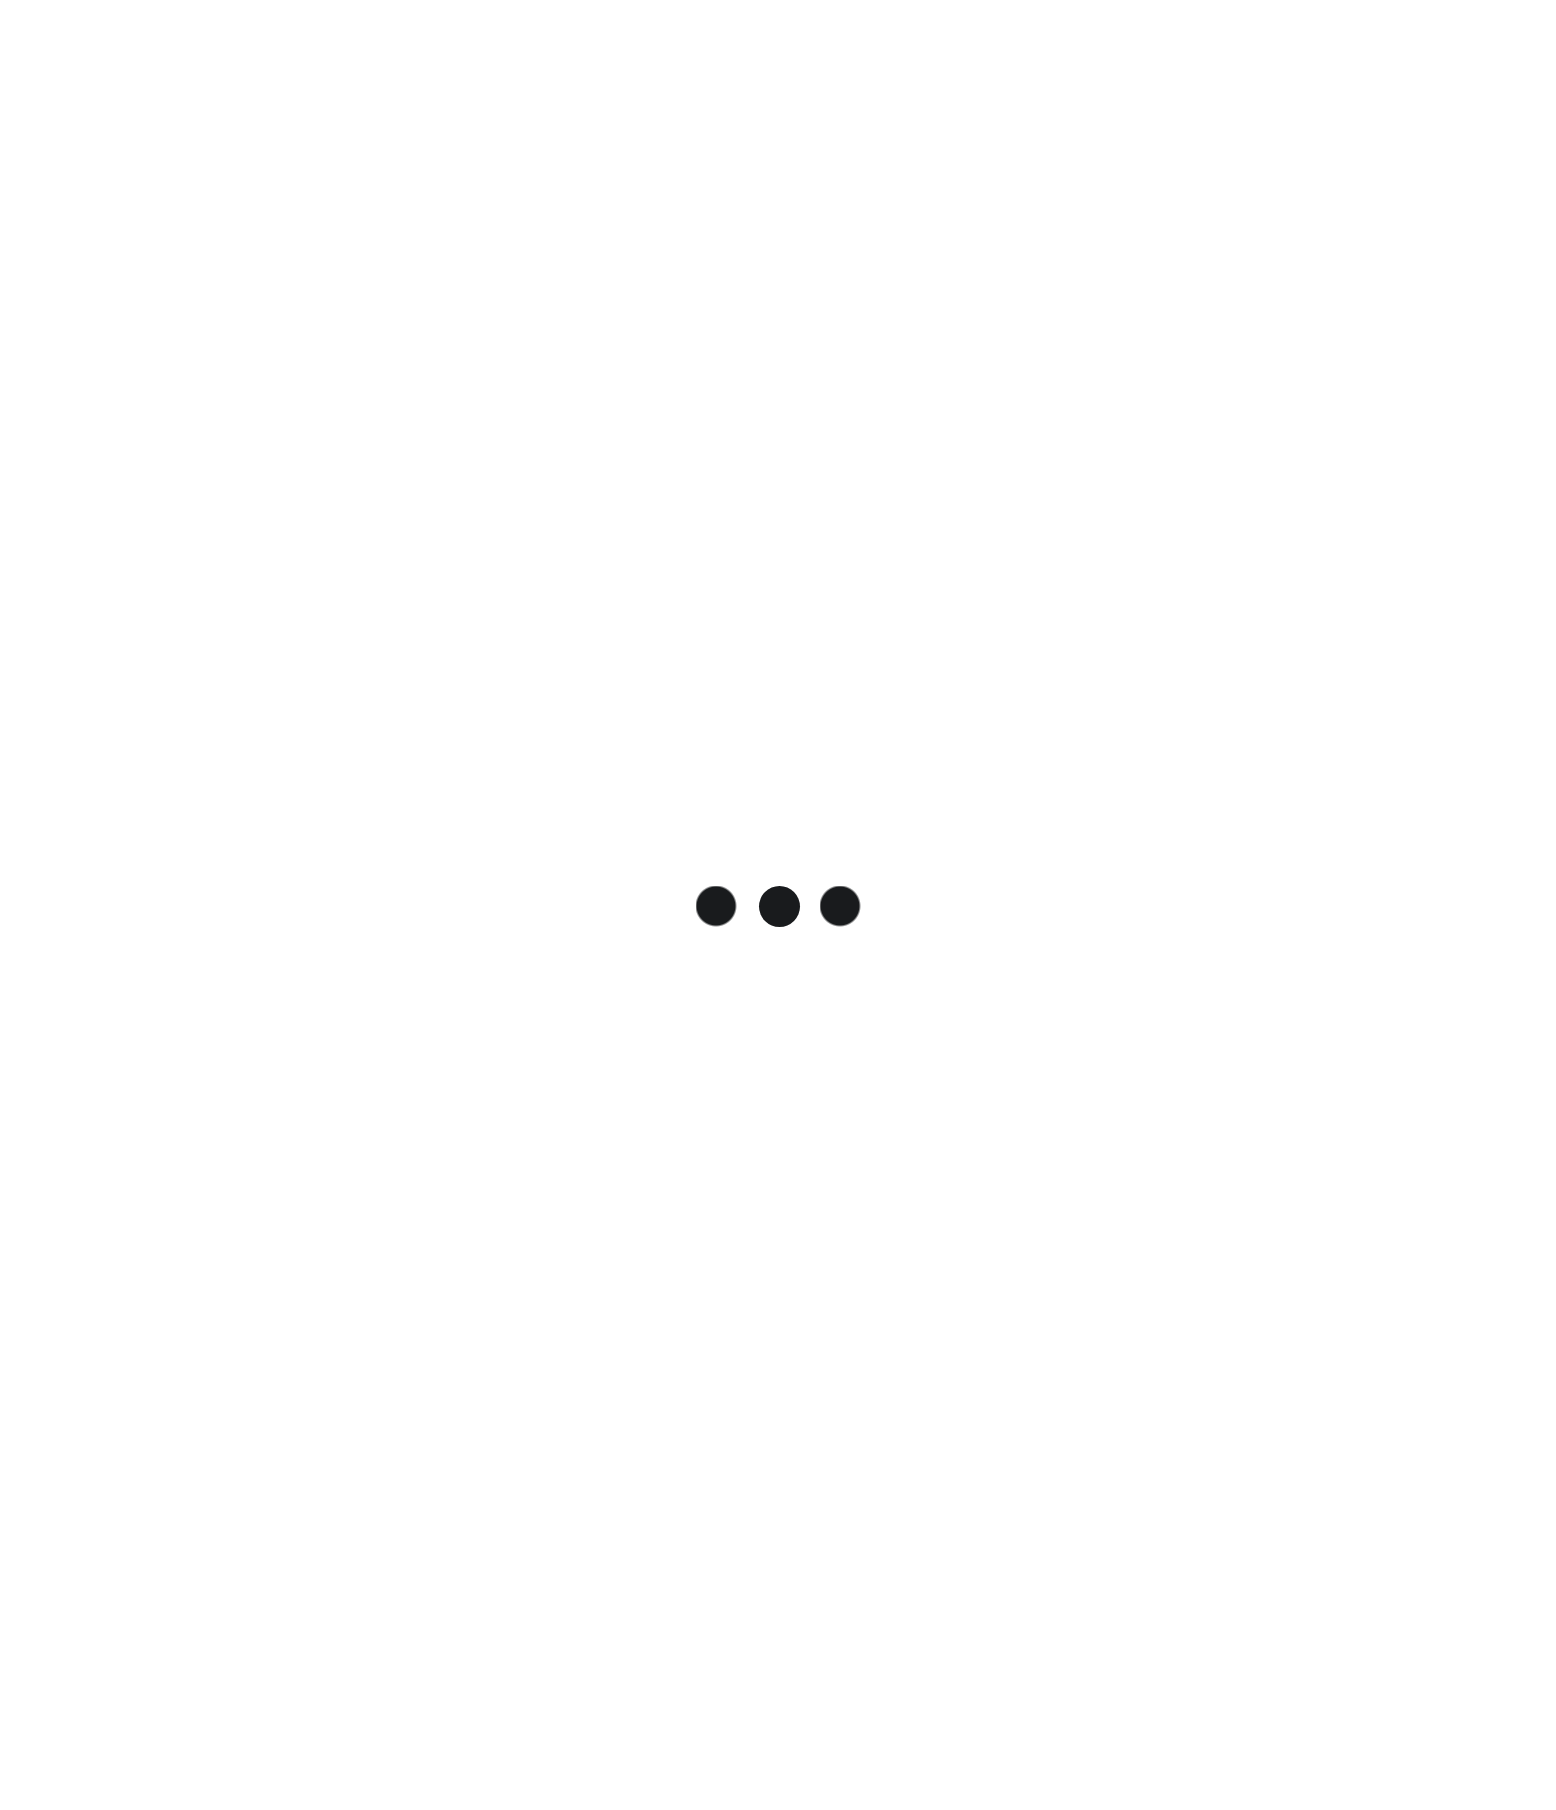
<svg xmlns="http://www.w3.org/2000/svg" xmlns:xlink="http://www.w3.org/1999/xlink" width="1556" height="1810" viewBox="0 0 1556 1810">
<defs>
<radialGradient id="g1" gradientUnits="userSpaceOnUse" cx="840" cy="906" r="21"><stop offset="0.9" stop-color="#191b1d"/><stop offset="1" stop-color="#ffffff"/></radialGradient>
<radialGradient id="g2" gradientUnits="userSpaceOnUse" cx="716" cy="906" r="21"><stop offset="0.9" stop-color="#191b1d"/><stop offset="1" stop-color="#ffffff"/></radialGradient>
</defs>
<rect width="100%" height="100%" fill="#ffffff"/>
<rect fill="url(#g1)" x="820" y="886" width="41" height="41"/>
<rect fill="url(#g2)" x="696" y="886" width="41" height="41"/>
<circle fill="#191b1d" cx="779.5" cy="906.5" r="20.5"/>
</svg>
